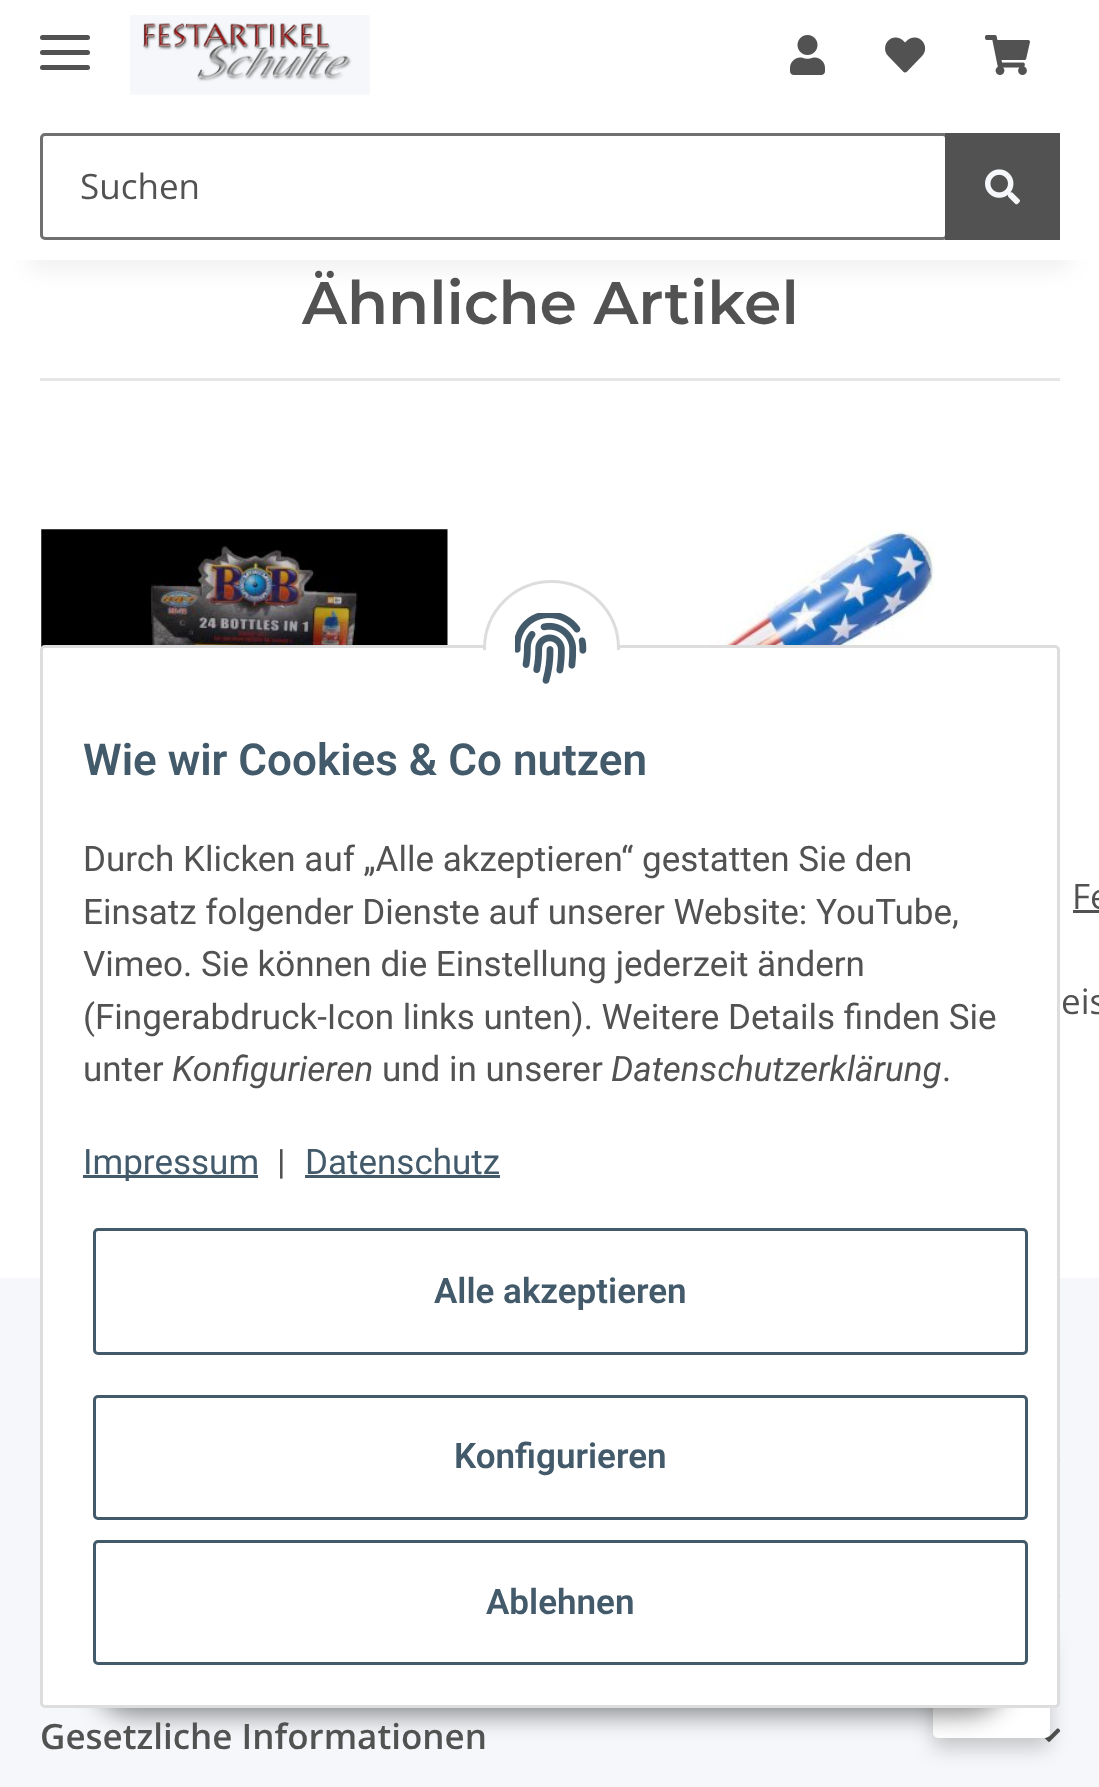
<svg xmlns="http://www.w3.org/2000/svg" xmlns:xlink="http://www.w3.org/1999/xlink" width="1099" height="1787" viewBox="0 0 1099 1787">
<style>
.cls-1{font:35px Open Sans;fill:#525252}
.cls-2{font:600 60px Montserrat;fill:#525252}
.cls-3{font:600 44px Roboto;fill:#435a6b}
.cls-4{font:35px Roboto;fill:#525252}
.cls-5{font:italic 35px Roboto;fill:#525252}
.cls-6{font:35px Roboto;fill:#435a6b}
.cls-7{font:600 35px Roboto;fill:#435a6b}
.cls-8{font:600 35px Open Sans;fill:#525252}
</style>
<rect width="100%" height="100%" fill="#f5f7fa"/>
<rect fill="#ffffff" x="0" y="260" width="1099" height="1018"/>
<rect fill="#000000" fill-opacity="0.06" filter="blur(11px)" x="30" y="70" width="1040" height="200"/>
<rect fill="#ffffff" x="0" y="0" width="1099" height="260"/>
<rect fill="#525252" x="40" y="50" width="50" height="5" rx="2.5"/>
<rect fill="#525252" x="40" y="35" width="50" height="5" rx="2.5"/>
<rect fill="#525252" x="40" y="65" width="50" height="5" rx="2.5"/>
<image xlink:href="image0.png" x="130" y="15" width="240" height="80"/>
<image xlink:href="image1.png" x="790" y="35" width="35" height="40"/>
<image xlink:href="image2.png" x="885" y="37" width="41" height="36"/>
<image xlink:href="image3.png" x="985" y="35" width="45" height="40"/>
<rect fill="none" stroke="#707070" stroke-width="3" x="41.5" y="134.5" width="905" height="104" rx="3.5"/>
<rect fill="#525252" x="945" y="133" width="115" height="107"/>
<image xlink:href="image4.png" x="985" y="169" width="35" height="36"/>
<rect fill="#e6e6e6" x="40" y="378" width="1020" height="3"/>
<image xlink:href="image5.png" x="41" y="529" width="407" height="118"/>
<image xlink:href="image6.png" x="529" y="529" width="406" height="116"/>
<rect fill="#525252" x="1073" y="910" width="26" height="3"/>
<image xlink:href="image9.png" x="1044" y="1728" width="17" height="14"/>
<rect fill="#000000" fill-opacity="0.2" filter="blur(10px)" x="933" y="1638" width="117" height="110" rx="5"/>
<rect fill="#ffffff" x="933" y="1628" width="117" height="110" rx="5"/>
<rect fill="#000000" fill-opacity="0.45" filter="blur(12.5px)" x="93" y="1635" width="915" height="80" rx="40"/>
<rect fill="#ffffff" stroke="#dddddd" stroke-width="3" x="41.5" y="646.5" width="1017" height="1060" rx="3.5"/>
<rect fill="#ffffff" stroke="#dddddd" stroke-width="3" x="484.5" y="581.5" width="134" height="135" rx="67"/>
<rect fill="#ffffff" x="483" y="650" width="137" height="68"/>
<image xlink:href="image7.png" x="515" y="613" width="72" height="71"/>
<rect fill="#435a6b" x="83" y="1175" width="175" height="3"/>
<rect fill="#435a6b" x="305" y="1175" width="195" height="3"/>
<rect fill="none" stroke="#435a6b" stroke-width="3" x="94.5" y="1229.5" width="932" height="124" rx="3.5"/>
<rect fill="none" stroke="#435a6b" stroke-width="3" x="94.5" y="1396.5" width="932" height="122" rx="3.5"/>
<rect fill="none" stroke="#435a6b" stroke-width="3" x="94.5" y="1541.5" width="932" height="122" rx="3.5"/>
<image xlink:href="image8.png" x="1060" y="1460" width="1" height="2"/>
<image xlink:href="image8.png" x="1060" y="1595" width="1" height="2"/>
<text class="cls-1" x="80" y="199">Suchen</text>
<text class="cls-2" x="302" y="324">Ähnliche Artikel</text>
<text class="cls-1" x="1072" y="909">Fe</text>
<text class="cls-1" x="1061" y="1014">eis</text>
<text class="cls-3" x="83" y="775">Wie wir Cookies &amp; Co nutzen</text>
<text class="cls-4"><tspan x="83" y="871">Durch Klicken auf „Alle akzeptieren“ gestatten Sie den</tspan><tspan x="83" y="924">Einsatz folgender Dienste auf unserer Website: YouTube,</tspan><tspan x="83" y="976">Vimeo. Sie können die Einstellung jederzeit ändern</tspan><tspan x="83" y="1029">(Fingerabdruck-Icon links unten). Weitere Details finden Sie</tspan><tspan x="83" y="1081">unter</tspan></text>
<text class="cls-5" x="172" y="1081">Konfigurieren</text>
<text class="cls-4" x="382" y="1081">und in unserer</text>
<text class="cls-5" x="611" y="1081">Datenschutzerklärung</text>
<text class="cls-4" x="942" y="1081">.</text>
<text class="cls-6" x="83" y="1174">Impressum</text>
<text class="cls-4" x="277" y="1174">|</text>
<text class="cls-6" x="305" y="1174">Datenschutz</text>
<text class="cls-7" x="434" y="1303">Alle akzeptieren</text>
<text class="cls-7" x="454" y="1468">Konfigurieren</text>
<text class="cls-7" x="486" y="1614">Ablehnen</text>
<text class="cls-8" x="40" y="1749">Gesetzliche Informationen</text>
</svg>
